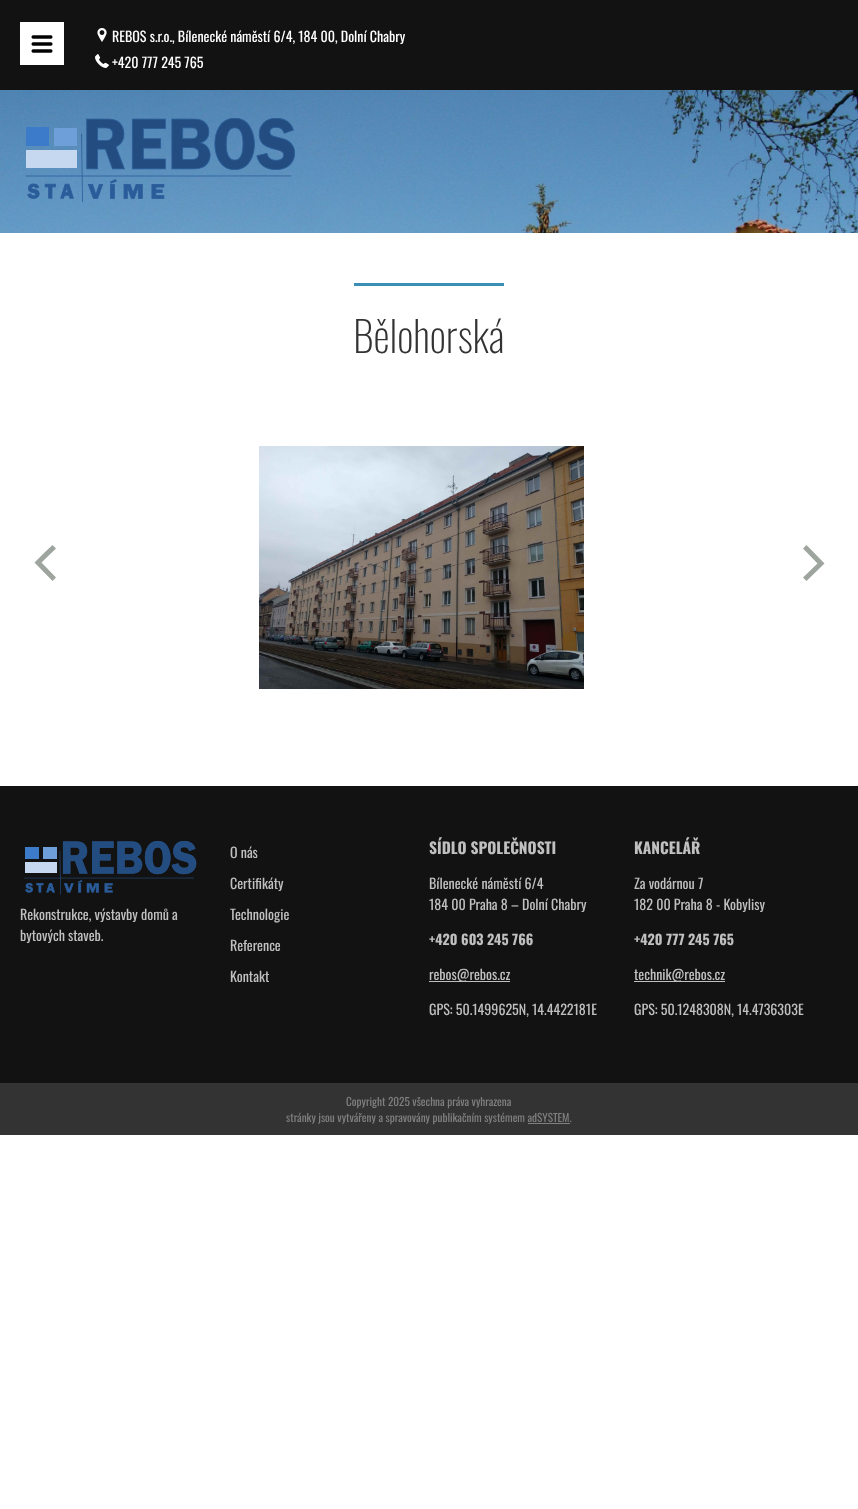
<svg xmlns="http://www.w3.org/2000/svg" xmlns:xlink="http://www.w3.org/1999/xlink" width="858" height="1509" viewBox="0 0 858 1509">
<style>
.cls-1{font:14px Oswald;fill:#ffffff}
.cls-2{font:200 42px Oswald;fill:#333333}
.cls-3{font:14px Oswald;fill:#c0c0c0}
.cls-4{font:bold 15.5px Oswald;fill:#c0c0c0}
.cls-5{font:bold 14px Oswald;fill:#c0c0c0}
.cls-6{font:11.2px Oswald;fill:#808080}
</style>
<rect width="100%" height="100%" fill="#ffffff"/>
<rect fill="#121212" x="0" y="0" width="858" height="90"/>
<rect fill="#ffffff" x="20" y="22" width="44" height="43"/>
<image xlink:href="image0.png" x="31" y="35" width="22" height="18"/>
<image xlink:href="image1.png" x="97" y="28" width="10" height="14"/>
<image xlink:href="image2.png" x="95" y="54" width="14" height="14"/>
<image xlink:href="image3.png" x="0" y="90" width="858" height="143"/>
<image xlink:href="image4.png" x="25" y="118" width="270" height="84"/>
<rect fill="#3b8eb5" x="354" y="283" width="150" height="3"/>
<image xlink:href="image5.png" x="259" y="446" width="325" height="243"/>
<path fill="#9ea59e" d="M43.5 553.5L52.5 545L56 548.5L41.5 562.5L56 577.5L52.5 581L34.5 562.5Z"/>
<path fill="#9ea59e" d="M804.5 547C806 545.5 806 544.5 807.5 546L824.5 563.5L806.5 581L803 577.5L817.5 563.5L803 548.5Z"/>
<rect fill="#121212" x="0" y="786" width="858" height="297"/>
<image xlink:href="image6.png" x="24" y="840" width="173" height="55"/>
<rect fill="#c0c0c0" x="429" y="981" width="81" height="1"/>
<rect fill="#c0c0c0" x="634" y="981" width="91" height="1"/>
<rect fill="#333333" x="0" y="1083" width="858" height="52"/>
<rect fill="#808080" x="528" y="1123" width="42" height="1"/>
<text class="cls-1"><tspan x="112" y="42">REBOS s.r.o., Bílenecké náměstí 6/4, 184 00, Dolní Chabry</tspan><tspan x="112" y="68">+420 777 245 765</tspan></text>
<text class="cls-2" x="353" y="353">Bělohorská</text>
<text class="cls-3"><tspan x="20" y="920">Rekonstrukce, výstavby domů a</tspan><tspan x="20" y="941">bytových staveb.</tspan></text>
<text class="cls-3" x="230" y="858">O nás</text>
<text class="cls-3" x="230" y="889">Certifikáty</text>
<text class="cls-3" x="230" y="920">Technologie</text>
<text class="cls-3" x="230" y="951">Reference</text>
<text class="cls-3" x="230" y="982">Kontakt</text>
<text class="cls-4" x="429" y="854">SÍDLO SPOLEČNOSTI</text>
<text class="cls-3"><tspan x="429" y="889">Bílenecké náměstí 6/4</tspan><tspan x="429" y="910">184 00 Praha 8 – Dolní Chabry</tspan></text>
<text class="cls-5" x="429" y="945">+420 603 245 766</text>
<text class="cls-3" x="429" y="980">rebos@rebos.cz</text>
<text class="cls-3" x="429" y="1015">GPS: 50.1499625N, 14.4422181E</text>
<text class="cls-4" x="634" y="854">KANCELÁŘ</text>
<text class="cls-3"><tspan x="634" y="889">Za vodárnou 7</tspan><tspan x="634" y="910">182 00 Praha 8 - Kobylisy</tspan></text>
<text class="cls-5" x="634" y="945">+420 777 245 765</text>
<text class="cls-3" x="634" y="980">technik@rebos.cz</text>
<text class="cls-3" x="634" y="1015">GPS: 50.1248308N, 14.4736303E</text>
<text class="cls-6" x="346" y="1106">Copyright 2025 všechna práva vyhrazena</text>
<text class="cls-6" x="286" y="1122">stránky jsou vytvářeny a spravovány publikačním systémem adSYSTEM.</text>
</svg>
